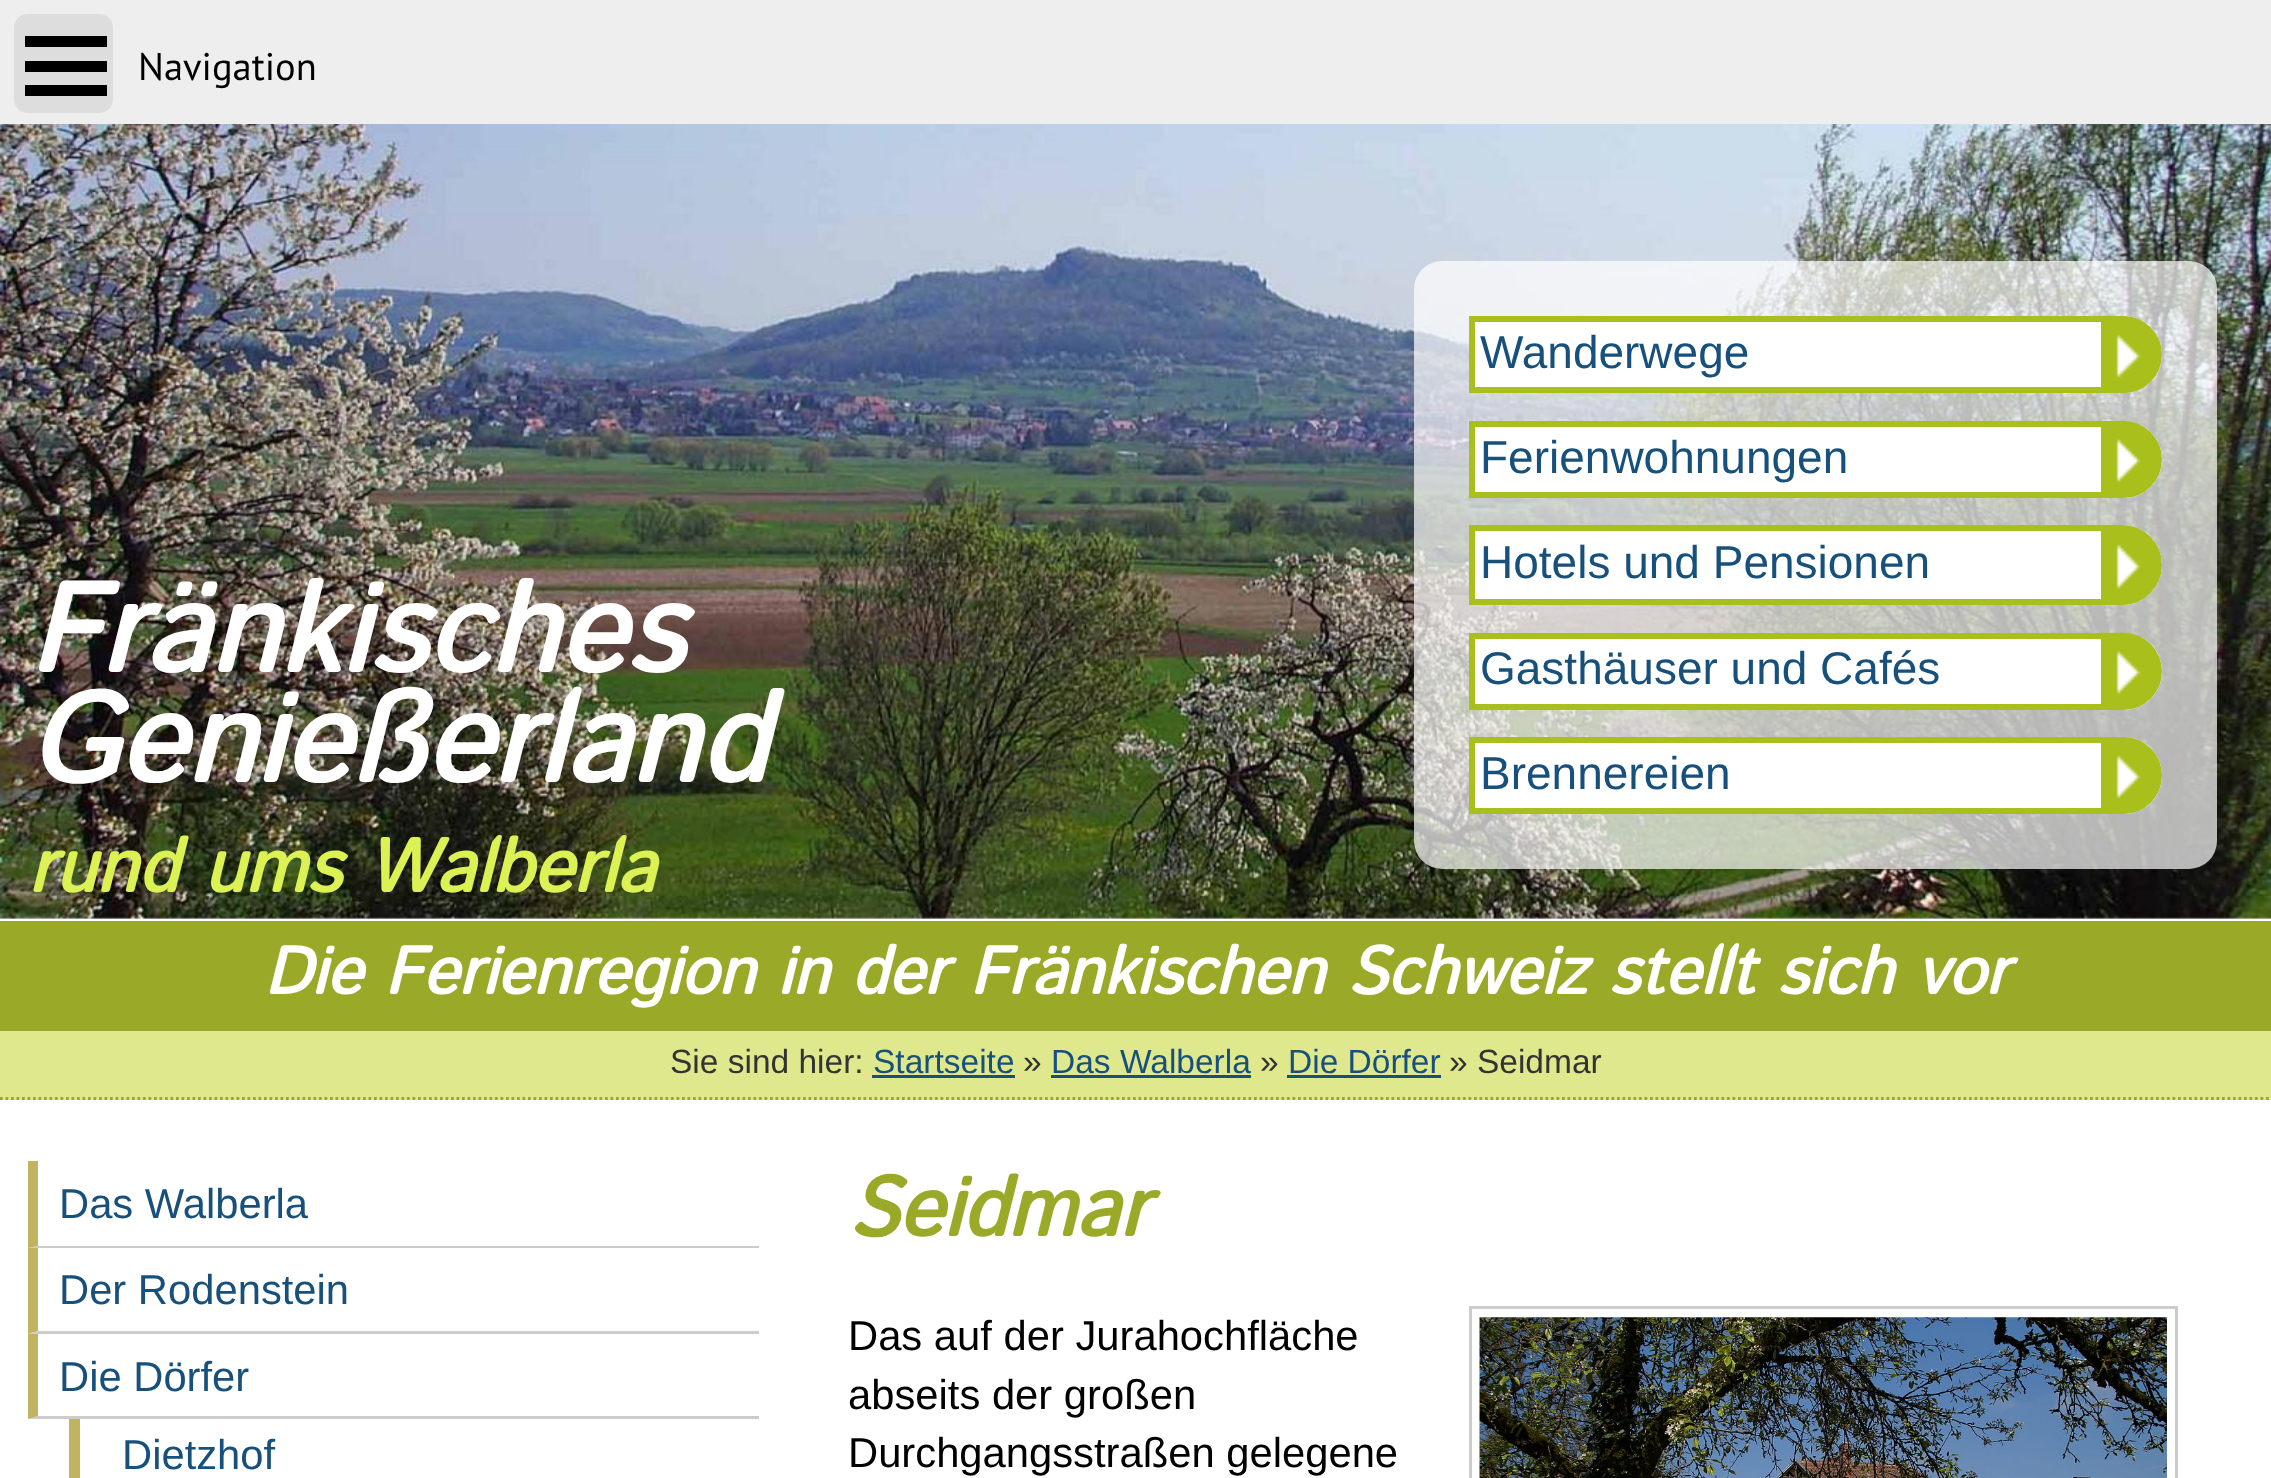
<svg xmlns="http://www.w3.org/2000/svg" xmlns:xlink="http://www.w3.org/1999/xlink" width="2271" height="1478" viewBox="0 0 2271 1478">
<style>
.cls-1{font:38.5px PT Sans;fill:#000000}
.cls-2{font:italic bold 125.5px Istok Web;fill:#ffffff}
.cls-3{font:italic bold 75.25px Istok Web;fill:#dcf154}
.cls-4{font:46px Liberation Sans;fill:#18507c}
.cls-5{font:italic bold 66.9px Istok Web;fill:#ffffff}
.cls-6{font:33.5px Liberation Sans;fill:#333333}
.cls-7{font:33.5px Liberation Sans;fill:#18507c}
.cls-8{font:41.75px Liberation Sans;fill:#18507c}
.cls-9{font:italic bold 83.5px Istok Web;fill:#9aa928}
.cls-10{font:41.75px Liberation Sans;fill:#000000}
</style>
<defs>
<clipPath id="clip1"><rect x="28" y="1161" width="2216" height="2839"/></clipPath>
</defs>
<rect width="100%" height="100%" fill="#ffffff"/>
<rect fill="#eeeeee" x="0" y="0" width="2271" height="124"/>
<rect fill="#dddddd" x="14" y="14" width="99" height="99" rx="14"/>
<rect fill="#000000" x="25" y="36" width="82" height="11"/>
<rect fill="#000000" x="25" y="61" width="82" height="11"/>
<rect fill="#000000" x="25" y="85" width="82" height="11"/>
<image xlink:href="image0.png" x="0" y="124" width="2271" height="795"/>
<rect fill="#ffffff" fill-opacity="0.7" x="1414" y="261" width="803" height="608" rx="28"/>
<path fill="#ffffff" d="M1469 316H2123.5C2145 316 2162 333 2162 354.5C2162 376 2145 393 2123.5 393H1469Z"/>
<image xlink:href="image1.png" x="2101" y="316" width="55" height="78"/>
<path fill="none" stroke="#a9bf1e" stroke-width="6" d="M1472 319H2123.5C2143 319 2159 335 2159 354.5C2159 374 2143 390 2123.5 390H1472Z"/>
<path fill="#ffffff" d="M1469 421H2123.5C2145 421 2162 438 2162 459.5C2162 481 2145 498 2123.5 498H1469Z"/>
<image xlink:href="image2.png" x="2101" y="420" width="55" height="78"/>
<path fill="none" stroke="#a9bf1e" stroke-width="6" d="M1472 424H2123.5C2143 424 2159 440 2159 459.5C2159 479 2143 495 2123.5 495H1472Z"/>
<path fill="#ffffff" d="M1469 525H2122C2144 525 2162 543 2162 565C2162 587 2144 605 2122 605H1469Z"/>
<image xlink:href="image3.png" x="2101" y="525" width="55" height="80"/>
<path fill="none" stroke="#a9bf1e" stroke-width="6" d="M1472 528H2122C2142.5 528 2159 544.5 2159 565C2159 585.5 2142.5 602 2122 602H1472Z"/>
<path fill="#ffffff" d="M1469 633H2123.5C2145 633 2162 650 2162 671.5C2162 693 2145 710 2123.5 710H1469Z"/>
<image xlink:href="image4.png" x="2101" y="632" width="55" height="78"/>
<path fill="none" stroke="#a9bf1e" stroke-width="6" d="M1472 636H2123.5C2143 636 2159 652 2159 671.5C2159 691 2143 707 2123.5 707H1472Z"/>
<path fill="#ffffff" d="M1469 737H2123.5C2145 737 2162 754 2162 775.5C2162 797 2145 814 2123.5 814H1469Z"/>
<image xlink:href="image5.png" x="2101" y="737" width="55" height="77"/>
<path fill="none" stroke="#a9bf1e" stroke-width="6" d="M1472 740H2123.5C2143 740 2159 756 2159 775.5C2159 795 2143 811 2123.5 811H1472Z"/>
<rect fill="#9aa928" x="0" y="921" width="2271" height="110"/>
<rect fill="#dfe88d" x="0" y="1031" width="2271" height="69"/>
<path fill="none" stroke="#9aa928" stroke-width="2.8" stroke-dasharray="2.75 2.75" d="M0 1098.5H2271.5"/>
<rect fill="#18507c" x="872" y="1075" width="143" height="3"/>
<rect fill="#18507c" x="1051" y="1075" width="200" height="3"/>
<rect fill="#18507c" x="1287" y="1075" width="154" height="3"/>
<path fill="#cccccc" d="M759 1248H28L38 1246H759Z"/>
<g clip-path="url(#clip1)">
<path fill="#c1b460" d="M28 1248V1160H38V1246Z"/>
</g>
<path fill="#cccccc" d="M759 1334H28L38 1331H759Z"/>
<path fill="#c1b460" d="M28 1334V1248H38V1331Z"/>
<path fill="#cccccc" d="M759 1419H28L38 1416H759Z"/>
<path fill="#c1b460" d="M28 1419V1334H38V1416Z"/>
<path fill="#c1b460" d="M69 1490V1419H80V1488Z"/>
<rect fill="none" stroke="#cccccc" stroke-width="3" x="1470.5" y="1307.5" width="706" height="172"/>
<image xlink:href="image6.png" x="1479" y="1317" width="688" height="161"/>
<text class="cls-1" x="138" y="80">Navigation</text>
<text class="cls-2"><tspan x="28" y="672">Fränkisches</tspan><tspan x="28" y="782">Genießerland</tspan></text>
<text class="cls-3" x="28" y="892">rund ums Walberla</text>
<text class="cls-4" x="1480" y="368">Wanderwege</text>
<text class="cls-4" x="1480" y="473">Ferienwohnungen</text>
<text class="cls-4" x="1480" y="578">Hotels und Pensionen</text>
<text class="cls-4" x="1480" y="684">Gasthäuser und Cafés</text>
<text class="cls-4" x="1480" y="789">Brennereien</text>
<text class="cls-5" x="264" y="994">Die Ferienregion in der Fränkischen Schweiz stellt sich vor</text>
<text class="cls-6" x="670" y="1073">Sie sind hier:</text>
<text class="cls-7" x="873" y="1073">Startseite</text>
<text class="cls-6" x="1023" y="1073">»</text>
<text class="cls-7" x="1051" y="1073">Das Walberla</text>
<text class="cls-6" x="1260" y="1073">»</text>
<text class="cls-7" x="1288" y="1073">Die Dörfer</text>
<text class="cls-6" x="1449" y="1073">» Seidmar</text>
<text class="cls-8" x="59" y="1218">Das Walberla</text>
<text class="cls-8" x="59" y="1304">Der Rodenstein</text>
<text class="cls-8" x="59" y="1391">Die Dörfer</text>
<text class="cls-8" x="122" y="1469">Dietzhof</text>
<text class="cls-9" x="848" y="1236">Seidmar</text>
<text class="cls-10"><tspan x="848" y="1350">Das auf der Jurahochfläche</tspan><tspan x="848" y="1409">abseits der großen</tspan><tspan x="848" y="1467">Durchgangsstraßen gelegene</tspan></text>
</svg>
